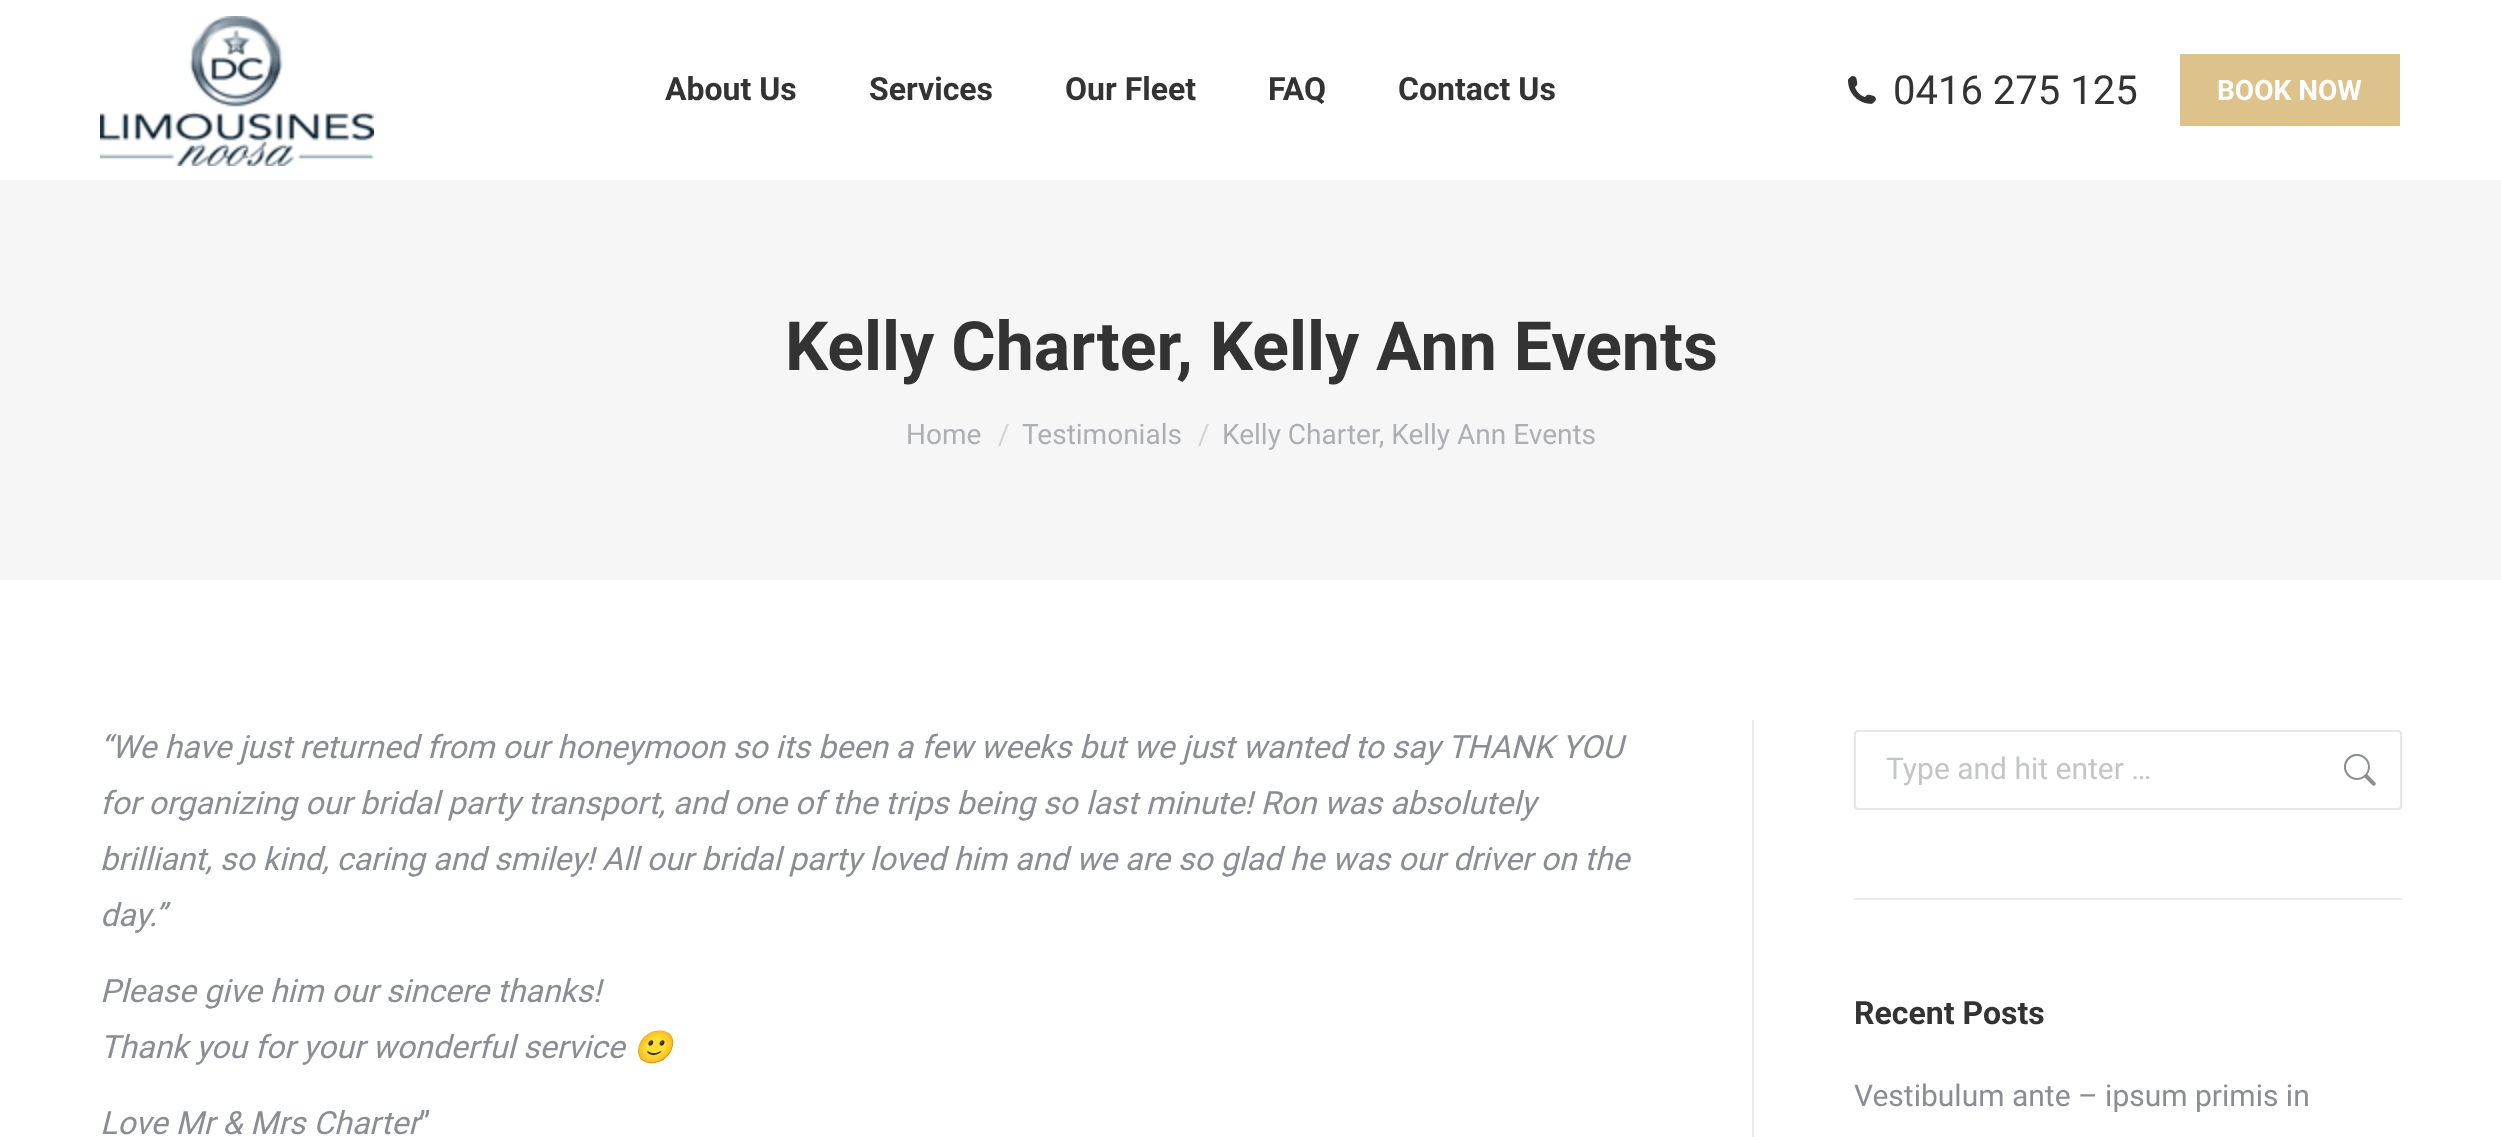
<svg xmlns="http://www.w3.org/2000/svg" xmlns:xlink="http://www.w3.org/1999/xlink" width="2501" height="1137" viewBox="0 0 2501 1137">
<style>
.cls-1{font:bold 32px Roboto;fill:#333333}
.cls-2{font:40px Roboto;fill:#333333}
.cls-3{font:bold 28px Roboto;fill:#ffffff}
.cls-4{font:bold 68px Roboto;fill:#333333}
.cls-5{font:28px Roboto;fill:#adafb3}
.cls-6{font:28px Roboto;fill:#d2d3d5}
.cls-7{font:italic 32px Roboto;fill:#8b8d94}
.cls-8{font:italic 32px Noto Color Emoji;fill:#8b8d94}
.cls-9{font:32px Roboto;fill:#8b8d94}
.cls-10{font:30px Roboto;fill:#c4c5c9}
.cls-11{font:30px Roboto;fill:#8b8d94}
</style>
<rect width="100%" height="100%" fill="#ffffff"/>
<image xlink:href="image0.png" x="100" y="16" width="274" height="150"/>
<image xlink:href="image1.png" x="1848" y="76" width="28" height="28"/>
<rect fill="#ddc28b" x="2180" y="54" width="220" height="72"/>
<rect fill="#f6f6f6" x="0" y="180" width="2501" height="400"/>
<rect fill="#ebebeb" x="1752" y="720" width="2" height="417"/>
<rect fill="none" stroke="#e7e7e7" stroke-width="2" x="1855" y="731" width="546" height="78" rx="3"/>
<image xlink:href="image2.png" x="2344" y="754" width="32" height="32"/>
<rect fill="#ebebeb" x="1854" y="898" width="548" height="2"/>
<text class="cls-1" x="665" y="100">About Us</text>
<text class="cls-1" x="869" y="100">Services</text>
<text class="cls-1" x="1065" y="100">Our Fleet</text>
<text class="cls-1" x="1268" y="100">FAQ</text>
<text class="cls-1" x="1398" y="100">Contact Us</text>
<text class="cls-2" x="1893" y="104">0416 275 125</text>
<text class="cls-3" x="2217" y="100">BOOK NOW</text>
<text class="cls-4" x="785" y="370">Kelly Charter, Kelly Ann Events</text>
<text class="cls-5" x="906" y="444">Home</text>
<text class="cls-6" x="998" y="444">/</text>
<text class="cls-5" x="1022" y="444">Testimonials</text>
<text class="cls-6" x="1198" y="444">/</text>
<text class="cls-5" x="1222" y="444">Kelly Charter, Kelly Ann Events</text>
<text class="cls-7"><tspan x="100" y="758">“We have just returned from our honeymoon so its been a few weeks but we just wanted to say THANK YOU</tspan><tspan x="100" y="814">for organizing our bridal party transport, and one of the trips being so last minute! Ron was absolutely</tspan><tspan x="100" y="870">brilliant, so kind, caring and smiley! All our bridal party loved him and we are so glad he was our driver on the</tspan><tspan x="100" y="926">day.”</tspan></text>
<text class="cls-7"><tspan x="100" y="1002">Please give him our sincere thanks!</tspan><tspan x="100" y="1058">Thank you for your wonderful service</tspan></text>
<text class="cls-8" x="633" y="1058">🙂</text>
<text class="cls-7" x="100" y="1134">Love Mr &amp; Mrs Charter</text>
<text class="cls-9" x="419" y="1134">”</text>
<text class="cls-10" x="1886" y="779">Type and hit enter …</text>
<text class="cls-1" x="1854" y="1024">Recent Posts</text>
<text class="cls-11" x="1854" y="1106">Vestibulum ante – ipsum primis in</text>
</svg>
